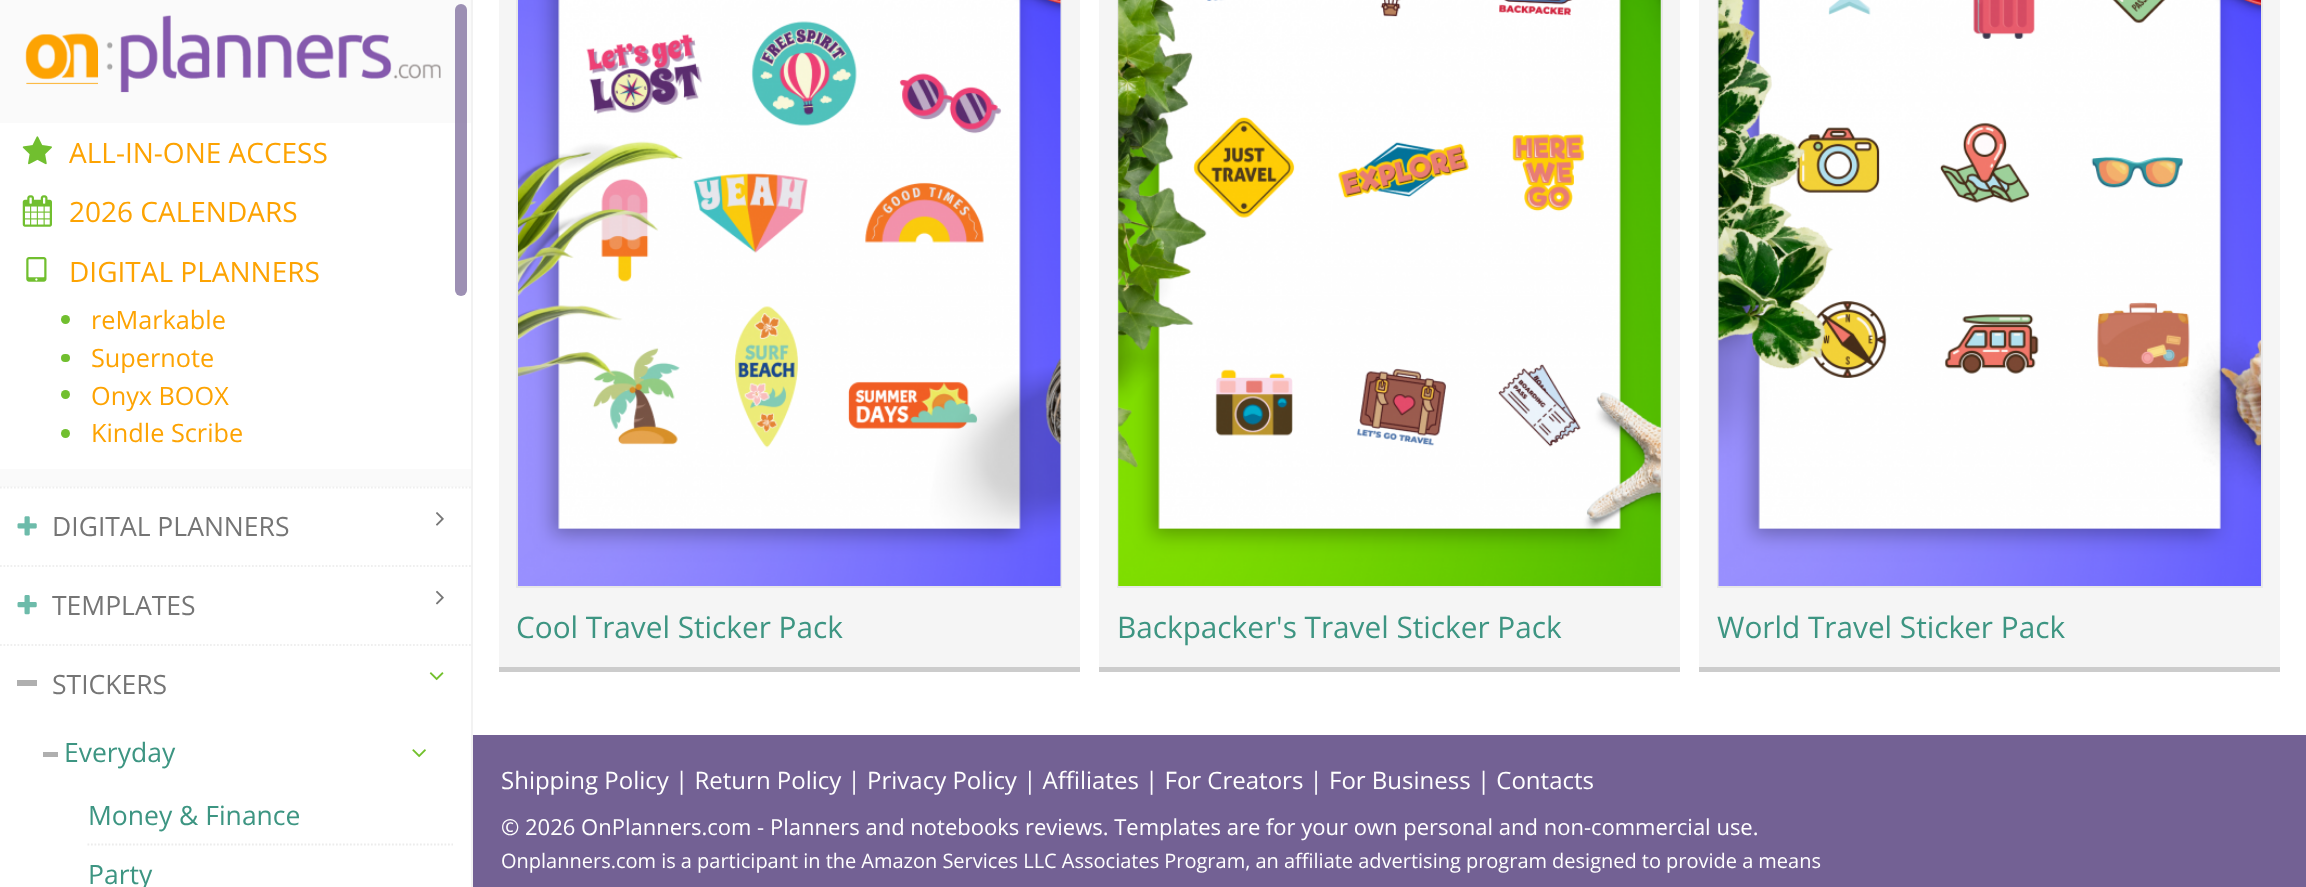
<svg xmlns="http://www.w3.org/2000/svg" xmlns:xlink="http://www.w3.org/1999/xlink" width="2306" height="887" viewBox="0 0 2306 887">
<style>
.cls-1{font:28px Open Sans;fill:#fda302}
.cls-2{font:25.25px Open Sans;fill:#fda302}
.cls-3{font:26.5px Open Sans;fill:#757575}
.cls-4{font:26.5px Open Sans;fill:#3d9582}
.cls-5{font:29.75px Open Sans;fill:#3d9582}
.cls-6{font:24px Open Sans;fill:#ffffff}
.cls-7{font:22px Open Sans;fill:#ffffff}
.cls-8{font:20px Open Sans;fill:#ffffff}
</style>
<rect width="100%" height="100%" fill="#ffffff"/>
<rect fill="#fafafa" x="0" y="0" width="471" height="487"/>
<rect fill="#f2f2f2" x="471" y="0" width="2" height="887"/>
<image xlink:href="image0.png" x="25" y="15" width="416" height="78"/>
<rect fill="#ffffff" x="0" y="123" width="471" height="346"/>
<image xlink:href="image1.png" x="22" y="136" width="30" height="29"/>
<image xlink:href="image2.png" x="22" y="195" width="30" height="32"/>
<image xlink:href="image3.png" x="26" y="257" width="21" height="25"/>
<circle fill="#71bf2f" cx="65.5" cy="319.5" r="4.5"/>
<rect fill="#71bf2f" x="61" y="354" width="9" height="8" rx="4"/>
<circle fill="#71bf2f" cx="65.5" cy="394.5" r="4.5"/>
<circle fill="#71bf2f" cx="65.5" cy="433.5" r="4.5"/>
<path fill="none" stroke="#efefef" stroke-width="1.8" stroke-dasharray="1.75 1.75" d="M0 487.5H471"/>
<image xlink:href="image4.png" x="17" y="516" width="20" height="20"/>
<image xlink:href="image5.png" x="436" y="512" width="8" height="14"/>
<path fill="none" stroke="#efefef" stroke-width="1.8" stroke-dasharray="1.75 1.75" d="M0 566H471"/>
<image xlink:href="image6.png" x="17" y="595" width="20" height="20"/>
<image xlink:href="image7.png" x="436" y="590" width="8" height="15"/>
<path fill="none" stroke="#efefef" stroke-width="1.8" stroke-dasharray="1.75 1.75" d="M0 645H471"/>
<rect fill="#afafaf" x="17" y="680" width="20" height="6"/>
<image xlink:href="image8.png" x="429" y="672" width="15" height="9"/>
<rect fill="#afafaf" x="43" y="752" width="15" height="5"/>
<image xlink:href="image9.png" x="412" y="749" width="14" height="9"/>
<path fill="none" stroke="#ececec" stroke-width="1.8" stroke-dasharray="1.75 1.75" d="M87.5 844.5H453"/>
<rect fill="#736194" fill-opacity="0.7" x="455" y="4" width="12" height="292" rx="6"/>
<rect fill="#f5f5f5" x="499" y="0" width="581" height="667"/>
<rect fill="#cccccc" x="499" y="667" width="581" height="5"/>
<rect fill="none" stroke="#e8e8e8" stroke-width="2" x="517" y="-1" width="544" height="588"/>
<image xlink:href="image10.png" x="518" y="0" width="543" height="586"/>
<rect fill="#f5f5f5" x="1099" y="0" width="581" height="667"/>
<rect fill="#cccccc" x="1099" y="667" width="581" height="5"/>
<rect fill="none" stroke="#e8e8e8" stroke-width="2" x="1118" y="-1" width="544" height="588"/>
<image xlink:href="image11.png" x="1118" y="0" width="543" height="586"/>
<rect fill="#f5f5f5" x="1699" y="0" width="581" height="667"/>
<rect fill="#cccccc" x="1699" y="667" width="581" height="5"/>
<rect fill="none" stroke="#e8e8e8" stroke-width="2" x="1718" y="-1" width="544" height="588"/>
<image xlink:href="image12.png" x="1718" y="0" width="543" height="586"/>
<rect fill="#736194" x="473" y="735" width="1833" height="152"/>
<text class="cls-1" x="69" y="163">ALL-IN-ONE ACCESS</text>
<text class="cls-1" x="69" y="222">2026 CALENDARS</text>
<text class="cls-1" x="69" y="282">DIGITAL PLANNERS</text>
<text class="cls-2"><tspan x="91" y="329">reMarkable</tspan><tspan x="91" y="367">Supernote</tspan><tspan x="91" y="405">Onyx BOOX</tspan><tspan x="91" y="442">Kindle Scribe</tspan></text>
<text class="cls-3" x="52" y="536">DIGITAL PLANNERS</text>
<text class="cls-3" x="52" y="615">TEMPLATES</text>
<text class="cls-3" x="52" y="694">STICKERS</text>
<text class="cls-4" x="64" y="762">Everyday</text>
<text class="cls-4" x="88" y="825">Money &amp; Finance</text>
<text class="cls-4" x="88" y="884">Party</text>
<text class="cls-5" x="516" y="638">Cool Travel Sticker Pack</text>
<text class="cls-5" x="1117" y="638">Backpacker's Travel Sticker Pack</text>
<text class="cls-5" x="1717" y="638">World Travel Sticker Pack</text>
<text class="cls-6" x="501" y="789">Shipping Policy | Return Policy | Privacy Policy | Affiliates | For Creators | For Business | Contacts</text>
<text class="cls-7" x="501" y="835">© 2026 OnPlanners.com - Planners and notebooks reviews. Templates are for your own personal and non-commercial use.</text>
<text class="cls-8" x="501" y="868" word-spacing="-0.1">Onplanners.com is a participant in the Amazon Services LLC Associates Program, an affiliate advertising program designed to provide a means</text>
</svg>
